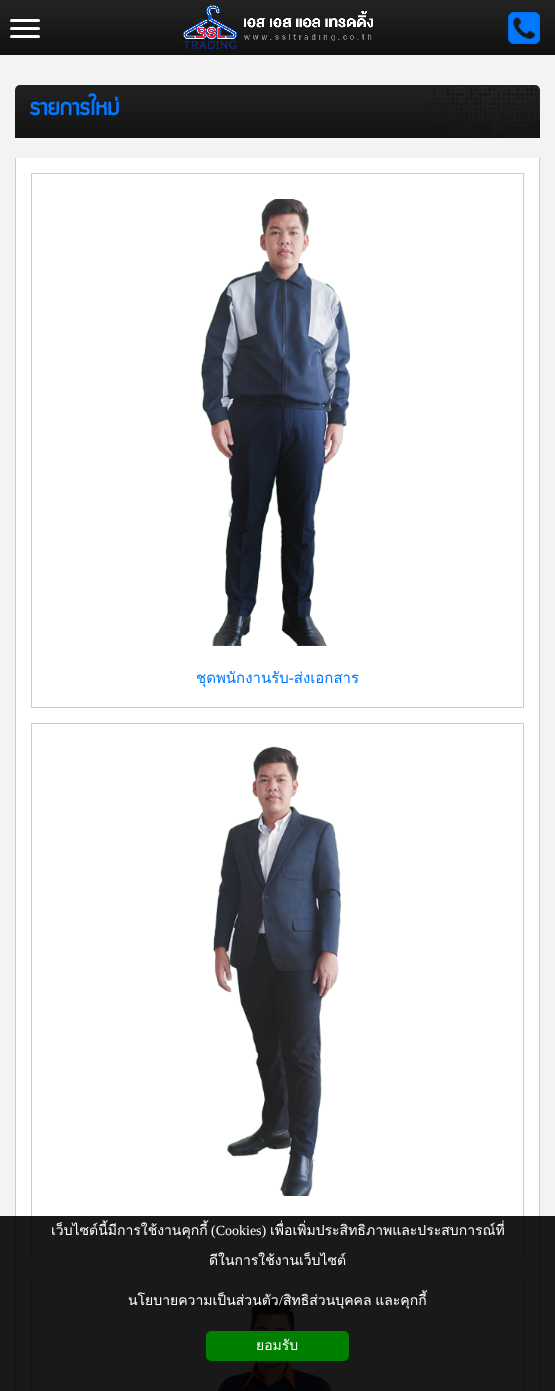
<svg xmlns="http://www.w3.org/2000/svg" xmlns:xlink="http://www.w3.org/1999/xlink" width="555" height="1391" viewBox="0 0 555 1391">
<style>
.cls-1{font:bold 24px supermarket;fill:#0078ff}
.cls-2{font:15px Loma;fill:#0078ff}
.cls-3{font:14px Loma;fill:#ffffff}
.cls-4{font:14px Liberation Serif;fill:#ffffff}
</style>
<rect width="100%" height="100%" fill="#f4f3f3"/>
<image xlink:href="image0.png" x="0" y="0" width="555" height="55"/>
<rect fill="#ffffff" x="10" y="19" width="30" height="3" rx="1.5"/>
<rect fill="#ffffff" x="10" y="27" width="30" height="3" rx="1.5"/>
<rect fill="#ffffff" x="10" y="35" width="30" height="3" rx="1.5"/>
<image xlink:href="image1.png" x="183" y="5" width="190" height="44"/>
<image xlink:href="image2.png" x="508" y="12" width="32" height="32"/>
<image xlink:href="image3.png" x="15" y="85" width="525" height="53"/>
<rect fill="#ffffff" x="16" y="158" width="523" height="1233"/>
<path fill="#cccccc" fill-rule="evenodd" d="M15 158H540V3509C540 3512 538 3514 535 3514H20C17 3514 15 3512 15 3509ZM16 158H539V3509C539 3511 537 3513 535 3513H20C18 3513 16 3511 16 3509Z"/>
<rect fill="none" stroke="#cccccc" x="31.5" y="173.5" width="492" height="534"/>
<image xlink:href="image4.png" x="201" y="199" width="149" height="447"/>
<rect fill="none" stroke="#cccccc" x="31.5" y="723.5" width="492" height="535"/>
<image xlink:href="image5.png" x="213" y="746" width="128" height="450"/>
<rect fill="none" stroke="#cccccc" x="31.5" y="1274.5" width="492" height="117"/>
<image xlink:href="image6.png" x="217" y="1298" width="115" height="93"/>
<rect fill="#000000" fill-opacity="0.9" x="0" y="1216" width="555" height="175"/>
<rect fill="#008000" x="206" y="1331" width="143" height="30" rx="5"/>
<text class="cls-1" x="30" y="115">รายการใหม่</text>
<text class="cls-2" x="196" y="683">ชุดพนักงานรับ-ส่งเอกสาร</text>
<text class="cls-3" x="51" y="1235">เว็บไซต์นี้มีการใช้งานคุกกี้</text>
<text class="cls-4" x="211" y="1235">(Cookies)</text>
<text class="cls-3" x="270" y="1235">เพื่อเพิ่มประสิทธิภาพและประสบการณ์ที่</text>
<text class="cls-3" x="209" y="1265">ดีในการใช้งานเว็บไซต์</text>
<text class="cls-3" x="128" y="1305">นโยบายความเป็นส่วนตัว</text>
<text class="cls-4" x="279" y="1305">/</text>
<text class="cls-3" x="283" y="1305" word-spacing="-1">สิทธิส่วนบุคคล และคุกกี้</text>
<text class="cls-3" x="256" y="1350">ยอมรับ</text>
</svg>
